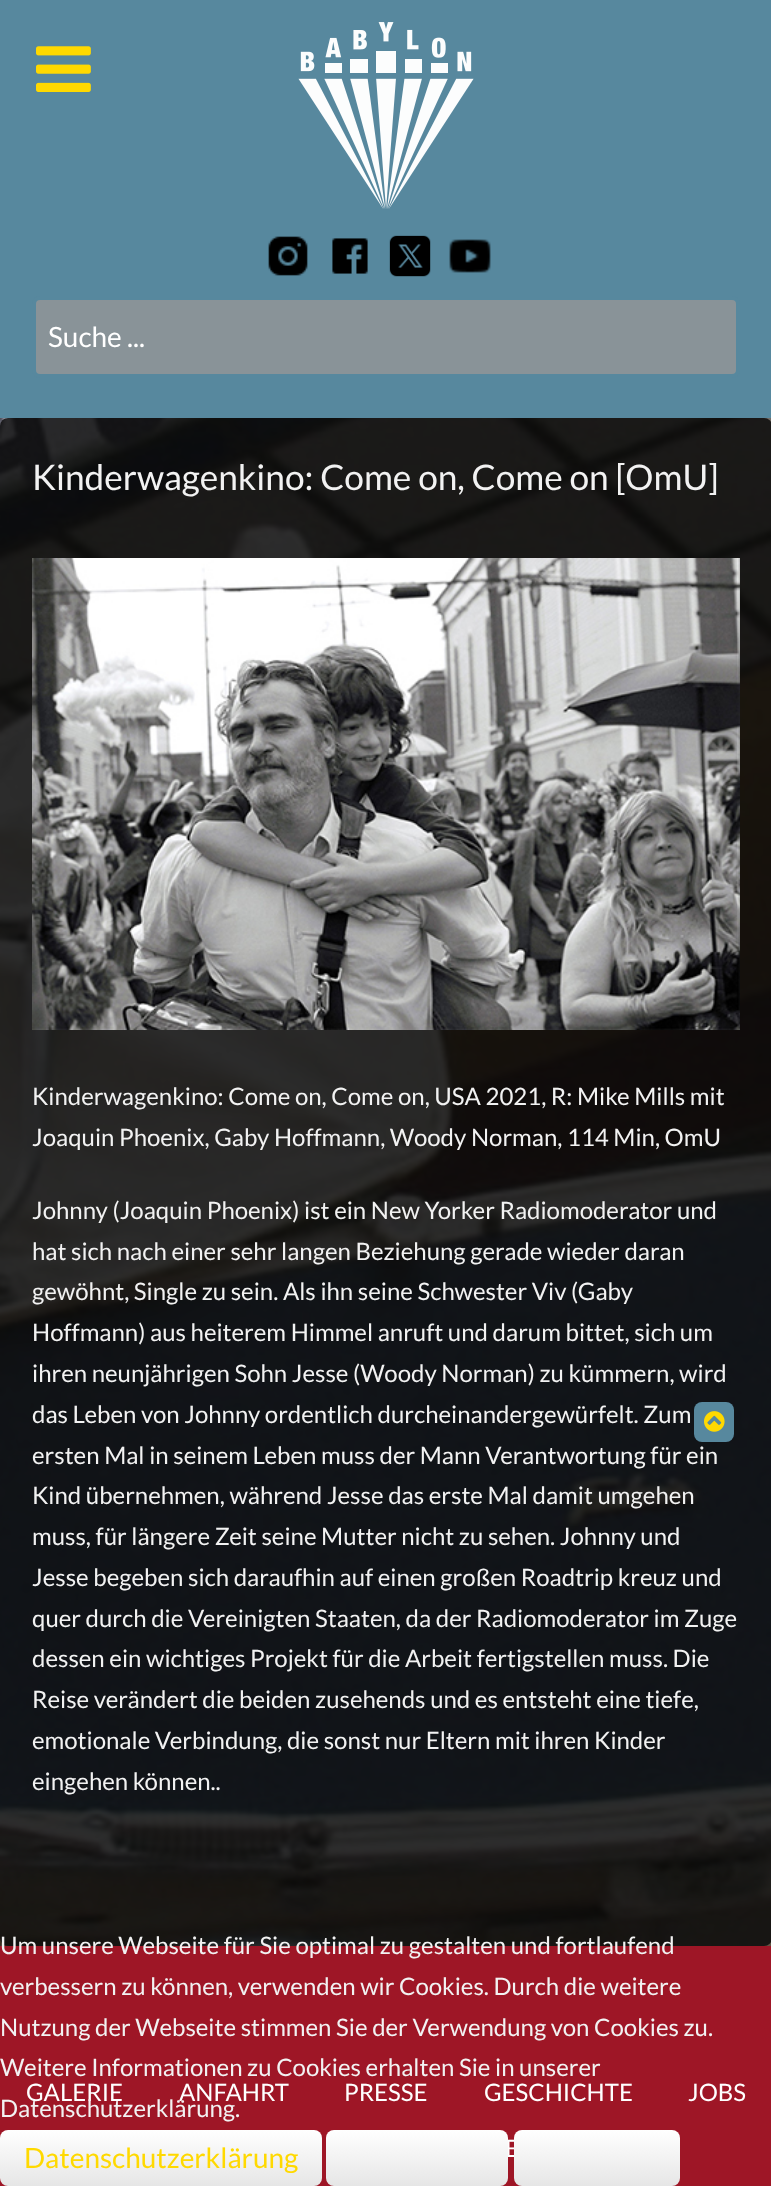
<svg xmlns="http://www.w3.org/2000/svg" xmlns:xlink="http://www.w3.org/1999/xlink" width="771" height="2186" viewBox="0 0 771 2186">
<style>
.cls-1{font:28px Lato;fill:#ffffff}
.cls-2{font:35.25px Lato;fill:#f2f2f2}
.cls-3{font:24px Lato;fill:#f2f2f2}
.cls-4{font:24px Lato;fill:#ffffff}
.cls-5{font:28px Lato;fill:#ffd900}
</style>
<defs>
<linearGradient id="g1" gradientUnits="userSpaceOnUse" x1="161" y1="2130" x2="161" y2="2186"><stop offset="0" stop-color="#ffffff"/><stop offset="1" stop-color="#e6e6e6"/></linearGradient>
<linearGradient id="g2" gradientUnits="userSpaceOnUse" x1="417" y1="2130" x2="417" y2="2186"><stop offset="0" stop-color="#ffffff"/><stop offset="1" stop-color="#e6e6e6"/></linearGradient>
<linearGradient id="g3" gradientUnits="userSpaceOnUse" x1="597" y1="2130" x2="597" y2="2186"><stop offset="0" stop-color="#ffffff"/><stop offset="1" stop-color="#e6e6e6"/></linearGradient>
</defs>
<rect width="100%" height="100%" fill="#ffffff"/>
<image xlink:href="image0.png" x="0" y="418" width="771" height="1528"/>
<rect fill="#57889e" x="0" y="0" width="771" height="418"/>
<image xlink:href="image1.png" x="36" y="46" width="55" height="46"/>
<image xlink:href="image2.png" x="298" y="22" width="176" height="187"/>
<image xlink:href="image3.png" x="268" y="236" width="40" height="40"/>
<image xlink:href="image4.png" x="332" y="238" width="36" height="36"/>
<image xlink:href="image5.png" x="389" y="235" width="42" height="42"/>
<image xlink:href="image6.png" x="449" y="239" width="42" height="34"/>
<rect fill="#899398" stroke="#57889e" stroke-width="4" x="34" y="298" width="704" height="78" rx="6"/>
<rect fill="#0a0a0a" fill-opacity="0.85" x="0" y="418" width="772" height="1528" rx="8"/>
<image xlink:href="image7.png" x="32" y="558" width="708" height="472"/>
<rect fill="#57889e" x="694" y="1402" width="40" height="40" rx="8"/>
<image xlink:href="image8.png" x="704" y="1411" width="21" height="21"/>
<rect fill="#9e1626" x="0" y="1946" width="771" height="240"/>
<rect fill="url(#g1)" x="0" y="2130" width="322" height="56" rx="8"/>
<text class="cls-1" x="48" y="347">Suche ...</text>
<text class="cls-2" x="32" y="490">Kinderwagenkino: Come on, Come on [OmU]</text>
<text class="cls-3"><tspan x="32" y="1105">Kinderwagenkino: Come on, Come on, USA 2021, R: Mike Mills mit</tspan><tspan x="32" y="1146">Joaquin Phoenix, Gaby Hoffmann, Woody Norman, 114 Min, OmU</tspan></text>
<text class="cls-3"><tspan x="32" y="1219">Johnny (Joaquin Phoenix) ist ein New Yorker Radiomoderator und</tspan><tspan x="32" y="1260">hat sich nach einer sehr langen Beziehung gerade wieder daran</tspan><tspan x="32" y="1300">gewöhnt, Single zu sein. Als ihn seine Schwester Viv (Gaby</tspan><tspan x="32" y="1341">Hoffmann) aus heiterem Himmel anruft und darum bittet, sich um</tspan><tspan x="32" y="1382">ihren neunjährigen Sohn Jesse (Woody Norman) zu kümmern, wird</tspan><tspan x="32" y="1423">das Leben von Johnny ordentlich durcheinandergewürfelt. Zum</tspan><tspan x="32" y="1464">ersten Mal in seinem Leben muss der Mann Verantwortung für ein</tspan><tspan x="32" y="1504">Kind übernehmen, während Jesse das erste Mal damit umgehen</tspan><tspan x="32" y="1545">muss, für längere Zeit seine Mutter nicht zu sehen. Johnny und</tspan><tspan x="32" y="1586">Jesse begeben sich daraufhin auf einen großen Roadtrip kreuz und</tspan><tspan x="32" y="1627">quer durch die Vereinigten Staaten, da der Radiomoderator im Zuge</tspan><tspan x="32" y="1667">dessen ein wichtiges Projekt für die Arbeit fertigstellen muss. Die</tspan><tspan x="32" y="1708">Reise verändert die beiden zusehends und es entsteht eine tiefe,</tspan><tspan x="32" y="1749">emotionale Verbindung, die sonst nur Eltern mit ihren Kinder</tspan><tspan x="32" y="1790">eingehen können..</tspan></text>
<text class="cls-4" x="26" y="2101">GALERIE</text>
<text class="cls-4" x="179" y="2101">ANFAHRT</text>
<text class="cls-4" x="344" y="2101">PRESSE</text>
<text class="cls-4" x="484" y="2101">GESCHICHTE</text>
<text class="cls-4" x="688" y="2101">JOBS</text>
<text class="cls-4" x="505" y="2157">E</text>
<text class="cls-3"><tspan x="0" y="1954">Um unsere Webseite für Sie optimal zu gestalten und fortlaufend</tspan><tspan x="0" y="1995">verbessern zu können, verwenden wir Cookies. Durch die weitere</tspan><tspan x="0" y="2036">Nutzung der Webseite stimmen Sie der Verwendung von Cookies zu.</tspan><tspan x="0" y="2076">Weitere Informationen zu Cookies erhalten Sie in unserer</tspan><tspan x="0" y="2117">Datenschutzerklärung.</tspan></text>
<text class="cls-5" x="24" y="2168">Datenschutzerklärung</text>
<rect fill="url(#g2)" x="326" y="2130" width="182" height="56" rx="8"/>
<rect fill="url(#g3)" x="514" y="2130" width="166" height="56" rx="8"/>
</svg>
